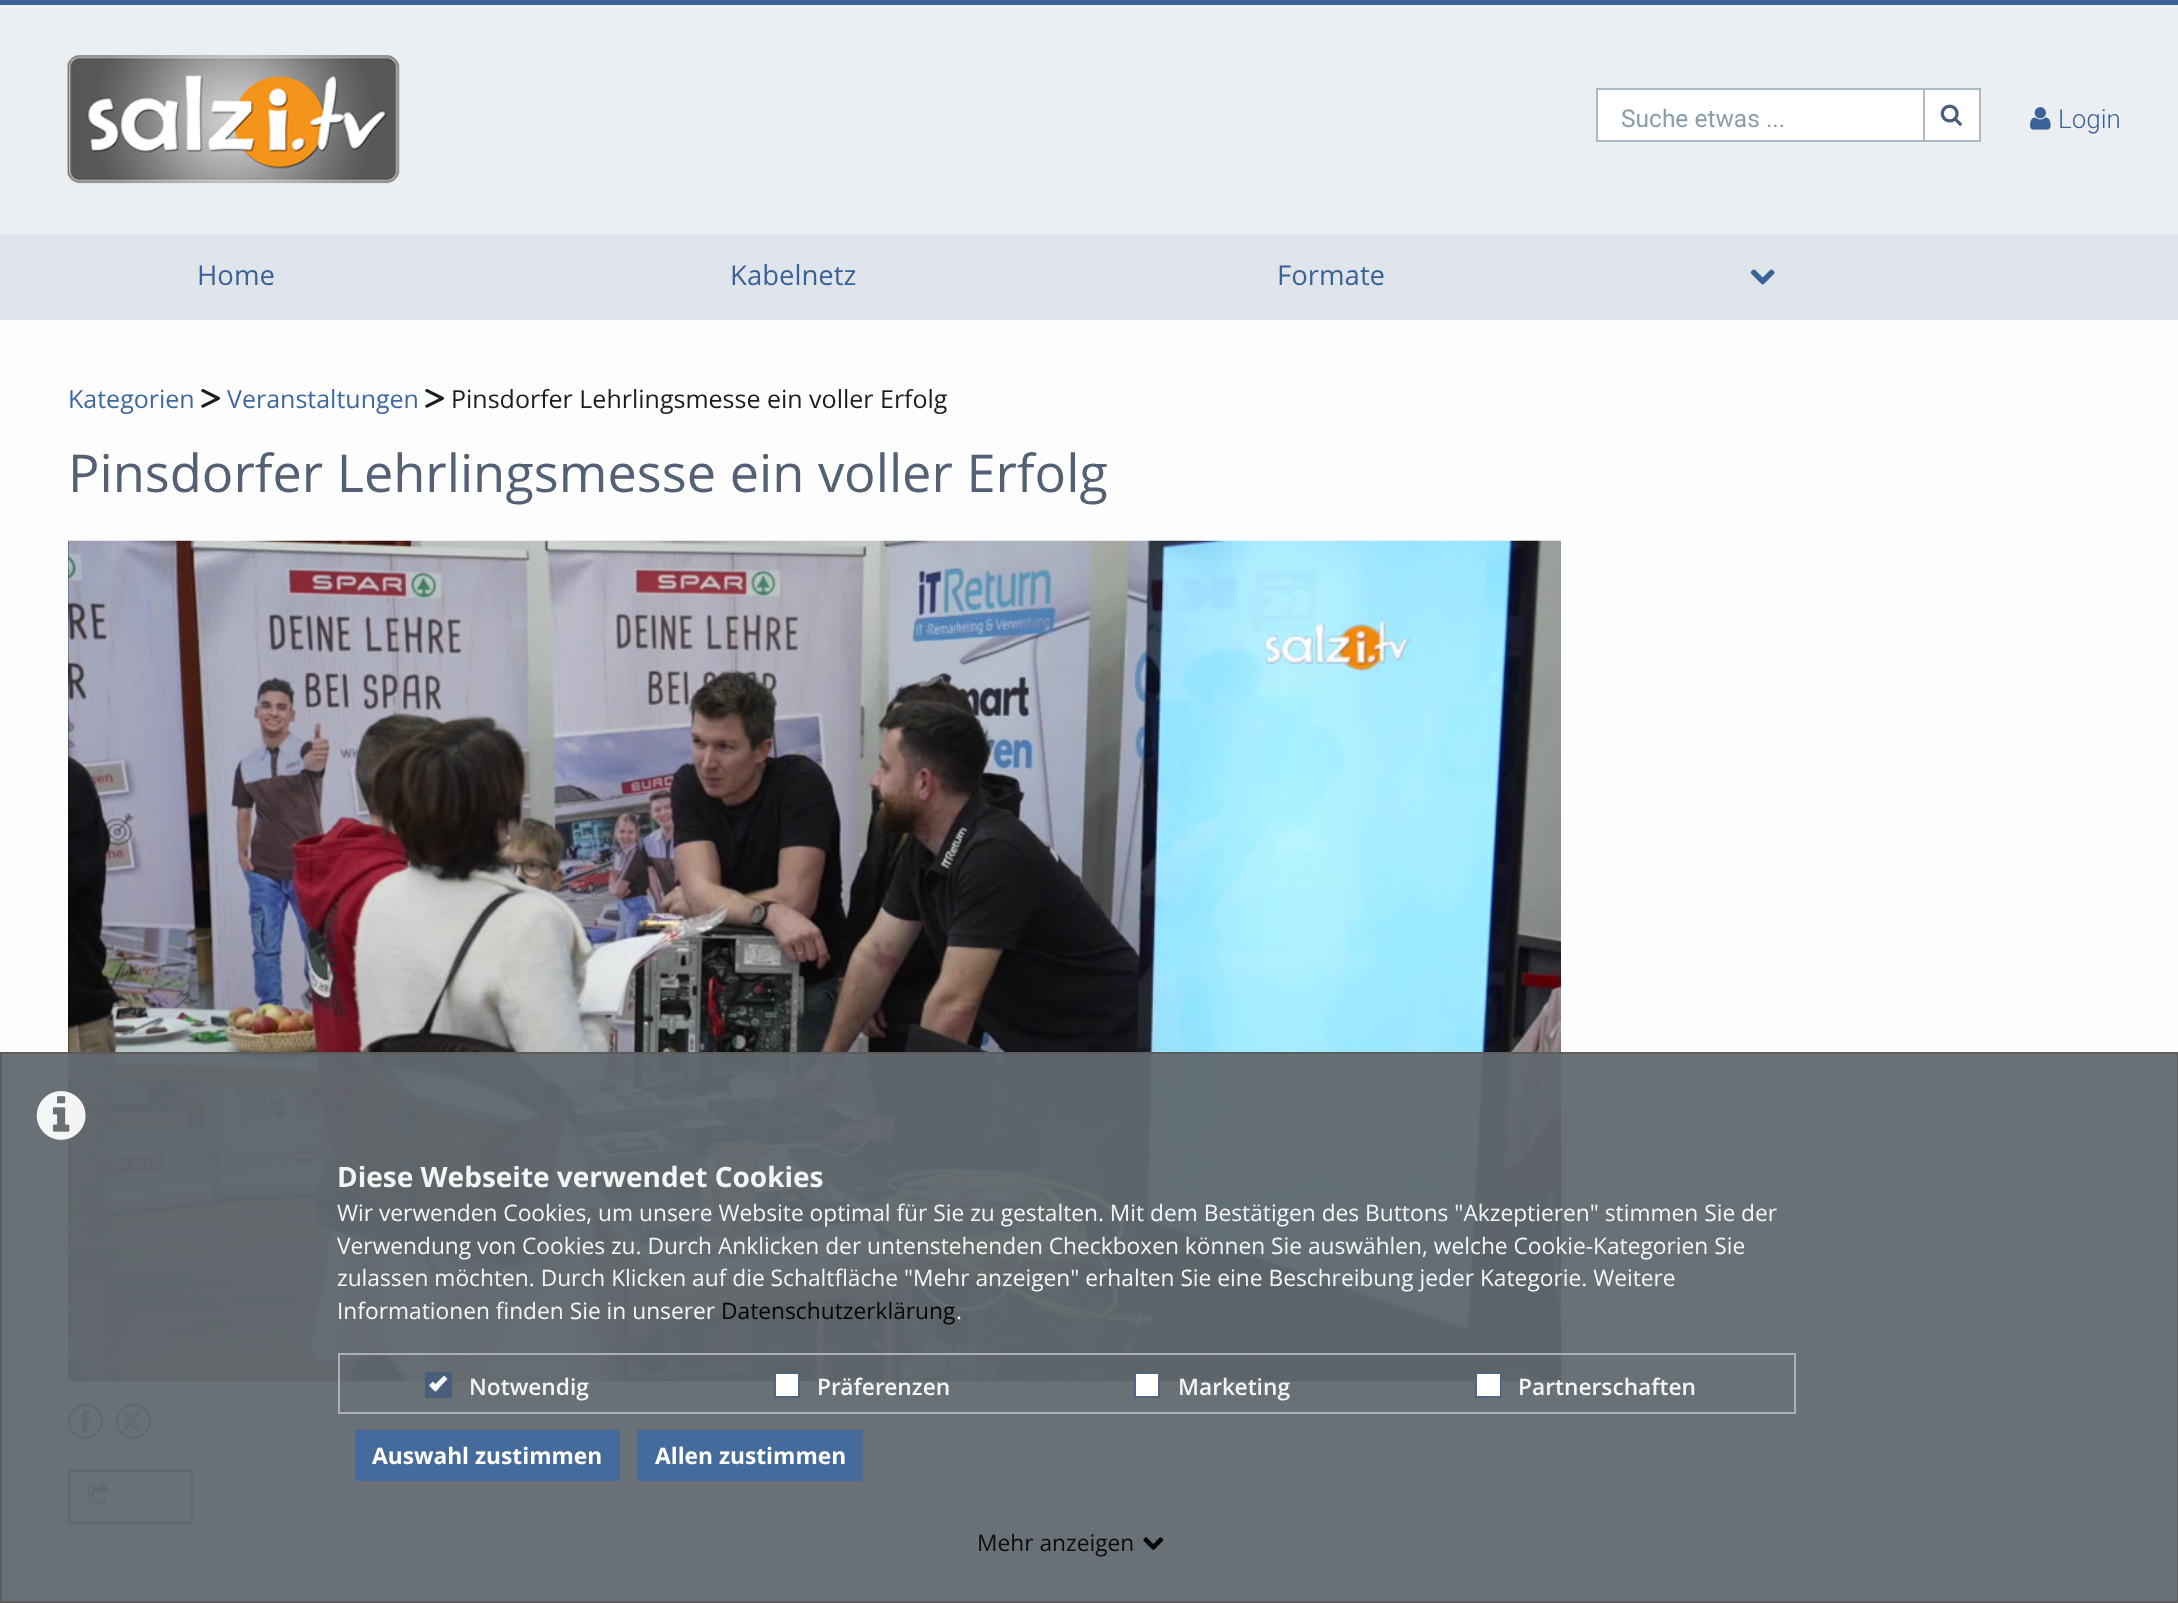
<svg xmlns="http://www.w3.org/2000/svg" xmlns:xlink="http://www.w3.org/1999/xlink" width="2178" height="1603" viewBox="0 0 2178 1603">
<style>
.cls-1{font:24.5px Roboto;fill:#8a9eac}
.cls-2{font:300 26px Roboto;fill:#3b6297}
.cls-3{font:27.5px Open Sans;fill:#3b6297}
.cls-4{font:25px 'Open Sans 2';fill:#3f68a2}
.cls-5{font:25px 'Open Sans 2';fill:#1a1c1e}
.cls-6{font:52.3px Open Sans;fill:#546174}
.cls-7{font:bold 28px Open Sans;fill:#f4f5f5}
.cls-8{font:22.75px 'Open Sans 2';fill:#f4f5f5}
.cls-9{font:22.75px 'Open Sans 2';fill:#050505}
.cls-10{font:600 22.75px Open Sans;fill:#f4f5f5}
.cls-11{font:bold 22.75px Open Sans;fill:#ffffff}
.cls-12{font:22.75px 'Open Sans 2';fill:#0d0d0d}
</style>
<rect width="100%" height="100%" fill="#dfe5eb"/>
<path fill="#e2e8ed" d="M0 233V235H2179V2V233Z"/>
<rect fill="#eceff2" x="0" y="5" width="2178" height="226"/>
<rect fill="#eef1f3" x="0" y="231" width="2178" height="2"/>
<rect fill="#3b6297" x="0" y="0" width="2178" height="5"/>
<image xlink:href="image0.png" x="67" y="55" width="333" height="129"/>
<rect fill="#ffffff" stroke="#acbbc3" stroke-width="2" x="1597" y="89" width="327" height="52"/>
<rect fill="#ffffff" stroke="#acbbc3" stroke-width="2" x="1924" y="89" width="56" height="52"/>
<image xlink:href="image1.png" x="1940" y="104" width="22" height="22"/>
<image xlink:href="image2.png" x="2030" y="107" width="21" height="23"/>
<image xlink:href="image3.png" x="1750" y="269" width="25" height="16"/>
<rect fill="#fdfdfd" x="0" y="320" width="2178" height="1283"/>
<image xlink:href="image4.png" x="201" y="389" width="19" height="19"/>
<image xlink:href="image4.png" x="425" y="389" width="19" height="19"/>
<rect fill="#000000" x="68" y="541" width="1493" height="840"/>
<image xlink:href="image5.png" x="68" y="540" width="1493" height="841"/>
<circle fill="none" stroke="#3b6297" stroke-width="2" cx="85.5" cy="1421.5" r="16.5"/>
<image xlink:href="image6.png" x="80" y="1410" width="11" height="22"/>
<circle fill="none" stroke="#3b6297" stroke-width="2" cx="133.5" cy="1421.5" r="16.5"/>
<image xlink:href="image7.png" x="122" y="1412" width="21" height="19"/>
<rect fill="none" stroke="#475d7b" stroke-width="2" x="69" y="1471" width="123" height="52"/>
<image xlink:href="image8.png" x="87" y="1483" width="22" height="21"/>
<rect fill="#61686f" fill-opacity="0.95" x="0" y="1052" width="2178" height="551"/>
<rect fill="none" stroke="#5c5c5c" stroke-opacity="0.95" stroke-width="2" x="1" y="1053" width="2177" height="549"/>
<image xlink:href="image9.png" x="36" y="1091" width="50" height="49"/>
<rect fill="none" stroke="#b0b3b8" stroke-opacity="0.95" stroke-width="2" x="339" y="1354" width="1456" height="59"/>
<rect fill="#767676" fill-opacity="0.28" x="427" y="1374" width="23" height="22"/>
<path fill="none" stroke="#ffffff" stroke-opacity="0.95" stroke-width="4.2" d="M430.5 1385L436 1390.5L446 1377"/>
<rect fill="#475d7b" fill-opacity="0.95" stroke="#475d7b" stroke-width="2" x="426" y="1373" width="25" height="24"/>
<path fill="#ffffff" fill-opacity="0.95" d="M444 1375.5L447.5 1379L435.5 1391.5L431.5 1388Z"/>
<path fill="#ffffff" d="M433 1381.5L439 1388L435.5 1391.5L429 1385.5Z"/>
<rect fill="#ffffff" fill-opacity="0.95" x="774" y="1372" width="26" height="26" rx="4"/>
<rect fill="none" stroke="#767676" stroke-opacity="0.95" stroke-width="2" x="775" y="1373" width="24" height="24" rx="3"/>
<rect fill="#ffffff" fill-opacity="0.95" x="774" y="1372" width="26" height="26"/>
<rect fill="none" stroke="#475d7b" stroke-opacity="0.95" stroke-width="2" x="775" y="1373" width="24" height="24"/>
<rect fill="#ffffff" fill-opacity="0.95" x="1134" y="1372" width="26" height="26" rx="4"/>
<rect fill="none" stroke="#767676" stroke-opacity="0.95" stroke-width="2" x="1135" y="1373" width="24" height="24" rx="3"/>
<rect fill="#ffffff" fill-opacity="0.95" x="1134" y="1372" width="26" height="26"/>
<rect fill="none" stroke="#475d7b" stroke-opacity="0.95" stroke-width="2" x="1135" y="1373" width="24" height="24"/>
<rect fill="#ffffff" fill-opacity="0.95" x="1475" y="1372" width="27" height="26" rx="4"/>
<rect fill="none" stroke="#767676" stroke-opacity="0.95" stroke-width="2" x="1476" y="1373" width="25" height="24" rx="3"/>
<rect fill="#ffffff" fill-opacity="0.95" x="1475" y="1372" width="27" height="26"/>
<rect fill="none" stroke="#475d7b" stroke-opacity="0.95" stroke-width="2" x="1476" y="1373" width="25" height="24"/>
<rect fill="#456a9c" x="355" y="1430" width="265" height="51"/>
<rect fill="#456a9c" x="637" y="1430" width="226" height="51"/>
<image xlink:href="image10.png" x="1143" y="1537" width="21" height="13"/>
<text class="cls-1" x="1621" y="127">Suche etwas ...</text>
<text class="cls-2" x="2058" y="128">Login</text>
<text class="cls-3" x="197" y="285">Home</text>
<text class="cls-3" x="730" y="285">Kabelnetz</text>
<text class="cls-3" x="1277" y="285">Formate</text>
<text class="cls-4" x="68" y="408">Kategorien</text>
<text class="cls-4" x="227" y="408">Veranstaltungen</text>
<text class="cls-5" x="451" y="408">Pinsdorfer Lehrlingsmesse ein voller Erfolg</text>
<text class="cls-6" x="68" y="492">Pinsdorfer Lehrlingsmesse ein voller Erfolg</text>
<text class="cls-7" x="337" y="1187">Diese Webseite verwendet Cookies</text>
<text class="cls-8"><tspan x="337" y="1221">Wir verwenden Cookies, um unsere Website optimal für Sie zu gestalten. Mit dem Bestätigen des Buttons "Akzeptieren" stimmen Sie der</tspan><tspan x="337" y="1254">Verwendung von Cookies zu. Durch Anklicken der untenstehenden Checkboxen können Sie auswählen, welche Cookie-Kategorien Sie</tspan><tspan x="337" y="1286">zulassen möchten. Durch Klicken auf die Schaltfläche "Mehr anzeigen" erhalten Sie eine Beschreibung jeder Kategorie. Weitere</tspan><tspan x="337" y="1319">Informationen finden Sie in unserer</tspan></text>
<text class="cls-9" x="721" y="1319">Datenschutzerklärung</text>
<text class="cls-8" x="956" y="1319">.</text>
<text class="cls-10" x="469" y="1395">Notwendig</text>
<text class="cls-10" x="817" y="1395">Präferenzen</text>
<text class="cls-10" x="1178" y="1395">Marketing</text>
<text class="cls-10" x="1518" y="1395">Partnerschaften</text>
<text class="cls-11" x="372" y="1464">Auswahl zustimmen</text>
<text class="cls-11" x="655" y="1464">Allen zustimmen</text>
<text class="cls-12" x="977" y="1551">Mehr anzeigen</text>
</svg>
